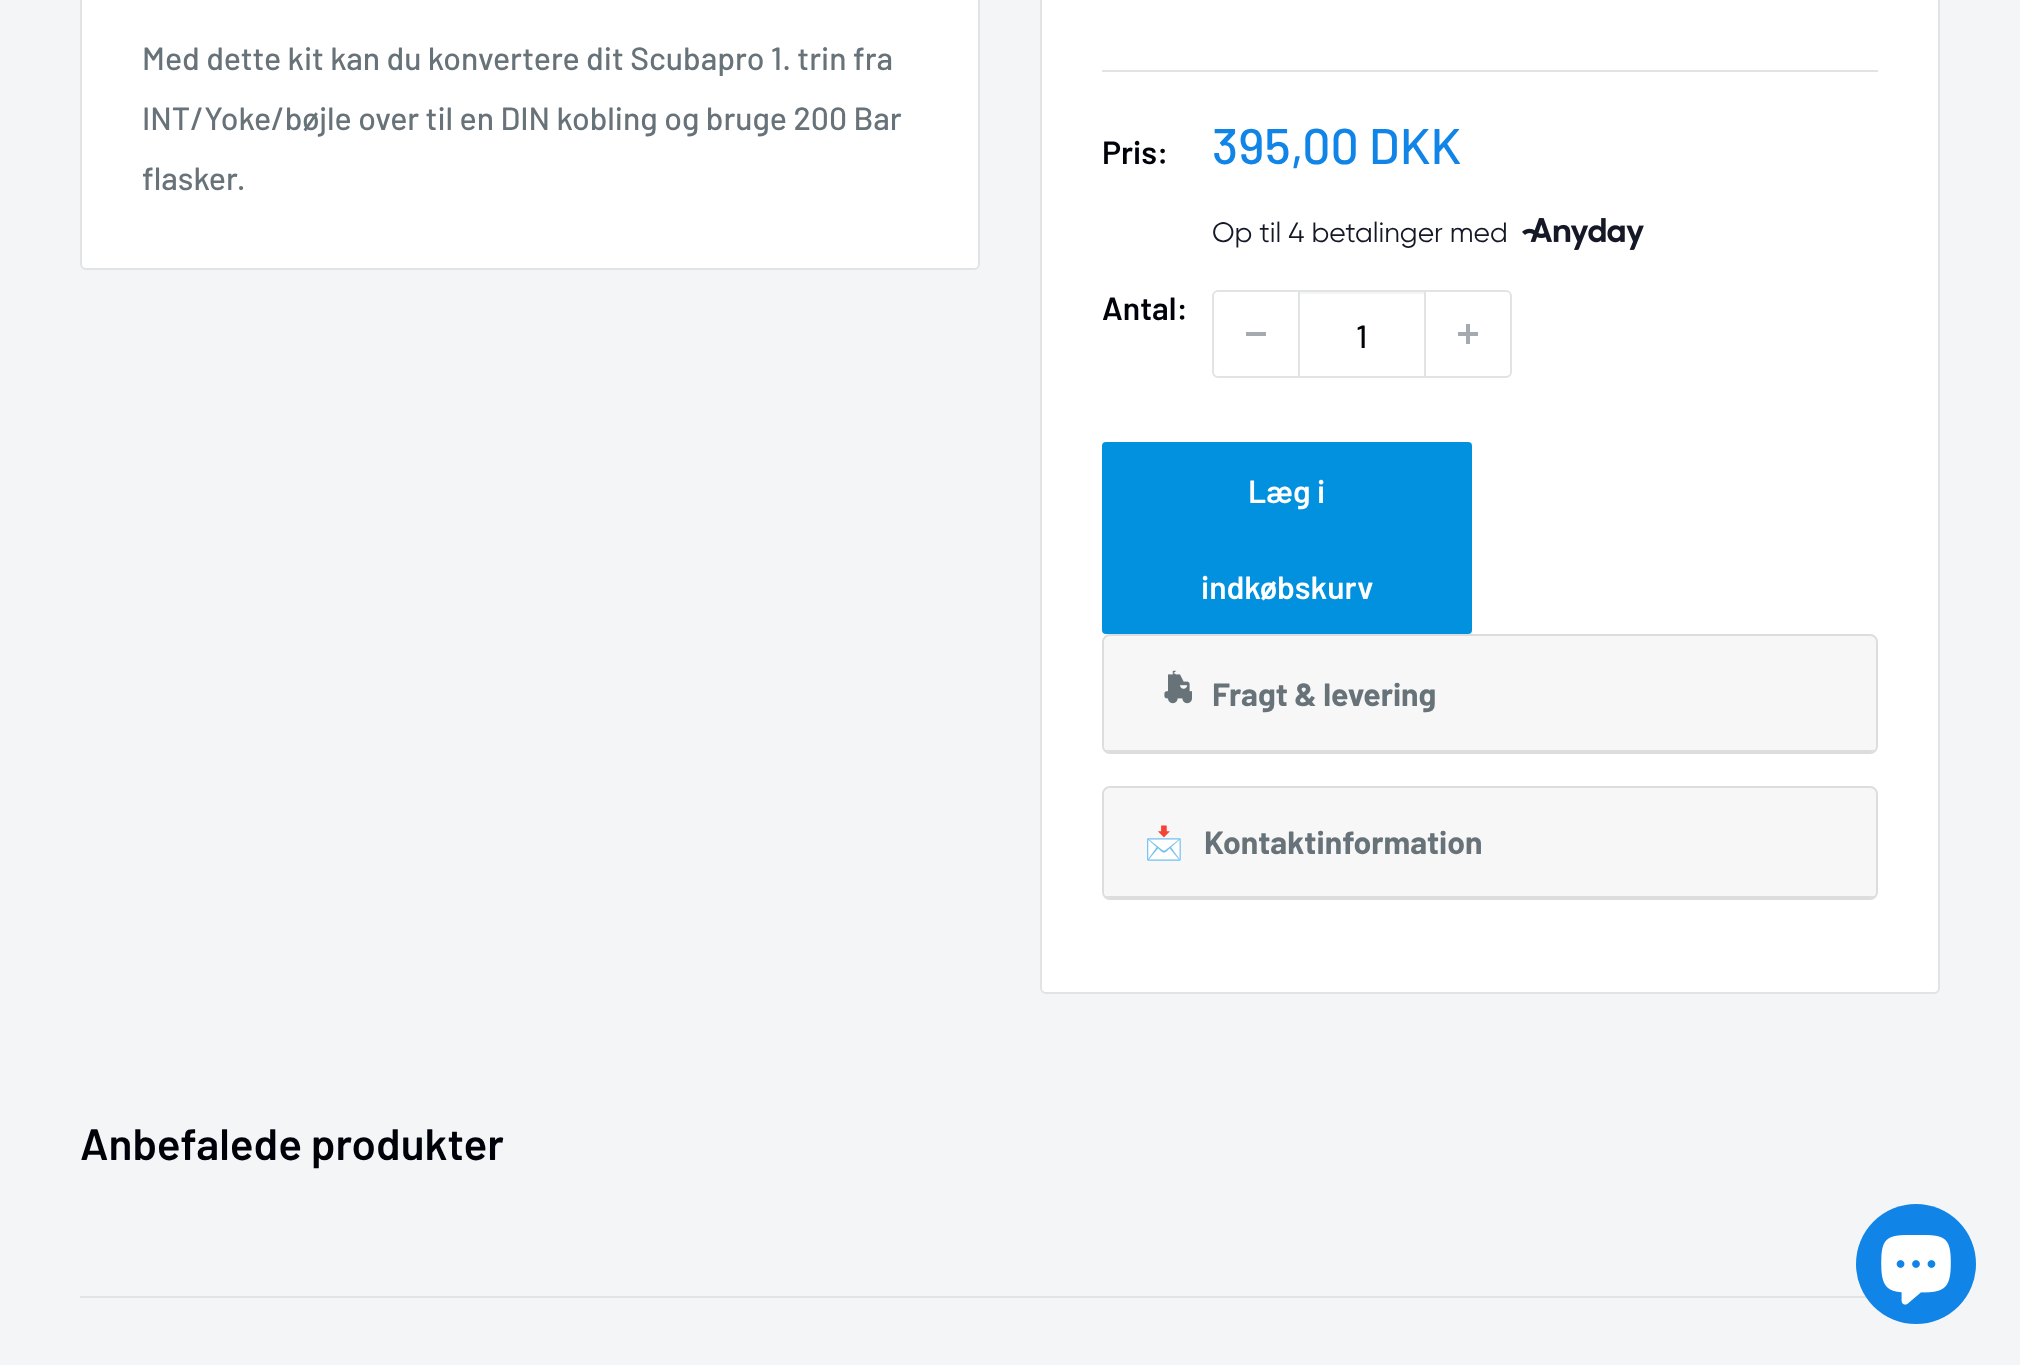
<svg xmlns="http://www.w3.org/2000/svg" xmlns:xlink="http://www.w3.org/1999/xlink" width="2020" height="1365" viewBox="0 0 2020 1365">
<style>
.cls-1{font:500 32px Barlow;fill:#677279}
.cls-2{font:600 32px Barlow;fill:#000209}
.cls-3{font:500 50px Barlow;fill:#1085e7}
.cls-4{font:28px Gilroy;fill:#151826}
.cls-5{font:500 32px Barlow;fill:#000209}
.cls-6{font:600 32px Barlow;fill:#ffffff}
.cls-7{font:bold 32px Barlow;fill:#677279}
.cls-8{font:bold 32px Noto Color Emoji;fill:#677279}
.cls-9{font:600 44px Barlow;fill:#000209}
</style>
<defs>
<clipPath id="clip1"><rect x="1104" y="636" width="772" height="116" rx="6"/></clipPath>
<clipPath id="clip2"><rect x="1104" y="788" width="772" height="110" rx="6"/></clipPath>
</defs>
<rect width="100%" height="100%" fill="#f3f5f6"/>
<rect fill="#ffffff" stroke="#e1e3e4" stroke-width="2" x="81" y="-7" width="898" height="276" rx="5"/>
<rect fill="#ffffff" stroke="#e1e3e4" stroke-width="2" x="1041" y="-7" width="898" height="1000" rx="5"/>
<rect fill="#e1e3e4" x="1102" y="70" width="776" height="2"/>
<image xlink:href="image0.png" x="1522" y="218" width="122" height="32"/>
<rect fill="none" stroke="#e1e3e4" stroke-width="2" x="1213" y="291" width="298" height="86" rx="5"/>
<rect fill="#a4aaaf" x="1246" y="332" width="20" height="4"/>
<rect fill="#f3f4f4" x="1300" y="292" width="124" height="2"/>
<rect fill="#e1e3e4" x="1424" y="292" width="2" height="84"/>
<rect fill="#e1e3e4" x="1298" y="292" width="2" height="84"/>
<image xlink:href="image1.png" x="1458" y="324" width="20" height="20"/>
<rect fill="#0191de" x="1102" y="442" width="370" height="192" rx="4"/>
<rect fill="#f7f7f7" stroke="#dddddd" stroke-width="2" x="1103" y="635" width="774" height="118" rx="7"/>
<g clip-path="url(#clip1)">
<path fill="#f7f7f7" d="M1110 636H1870C1873.5 636 1876 638.5 1876 642V750H1104V642C1104 638.5 1106.5 636 1110 636Z"/>
</g>
<image xlink:href="image2.png" x="1164" y="670" width="28" height="34"/>
<g clip-path="url(#clip1)">
<rect fill="#dddddd" x="1104" y="750" width="772" height="2"/>
</g>
<rect fill="#f7f7f7" stroke="#dddddd" stroke-width="2" x="1103" y="787" width="774" height="112" rx="7"/>
<g clip-path="url(#clip2)">
<path fill="#f7f7f7" d="M1110 788H1870C1873.5 788 1876 790.5 1876 794V896H1104V794C1104 790.5 1106.5 788 1110 788Z"/>
<rect fill="#dddddd" x="1104" y="896" width="772" height="2"/>
</g>
<rect fill="#e1e3e4" x="80" y="1296" width="1787" height="2"/>
<circle fill="#1085e7" cx="1916" cy="1264" r="60"/>
<image xlink:href="image3.png" x="1881" y="1235" width="70" height="70"/>
<text class="cls-1"><tspan x="142" y="70">Med dette kit kan du konvertere dit Scubapro 1. trin fra</tspan><tspan x="142" y="130">INT/Yoke/bøjle over til en DIN kobling og bruge 200 Bar</tspan><tspan x="142" y="190">flasker.</tspan></text>
<text class="cls-2" x="1102" y="164">Pris:</text>
<text class="cls-3" x="1212" y="164">395,00 DKK</text>
<text class="cls-2" x="1102" y="320">Antal:</text>
<text class="cls-4" x="1212" y="242">Op til 4 betalinger med</text>
<text class="cls-5" x="1356" y="348">1</text>
<text class="cls-6" x="1248" y="503">Læg i</text>
<text class="cls-6" x="1201" y="599">indkøbskurv</text>
<text class="cls-7" x="1212" y="706">Fragt &amp; levering</text>
<text class="cls-8" x="1144" y="854">📩</text>
<text class="cls-7" x="1204" y="854">Kontaktinformation</text>
<text class="cls-9" x="80" y="1160">Anbefalede produkter</text>
</svg>
